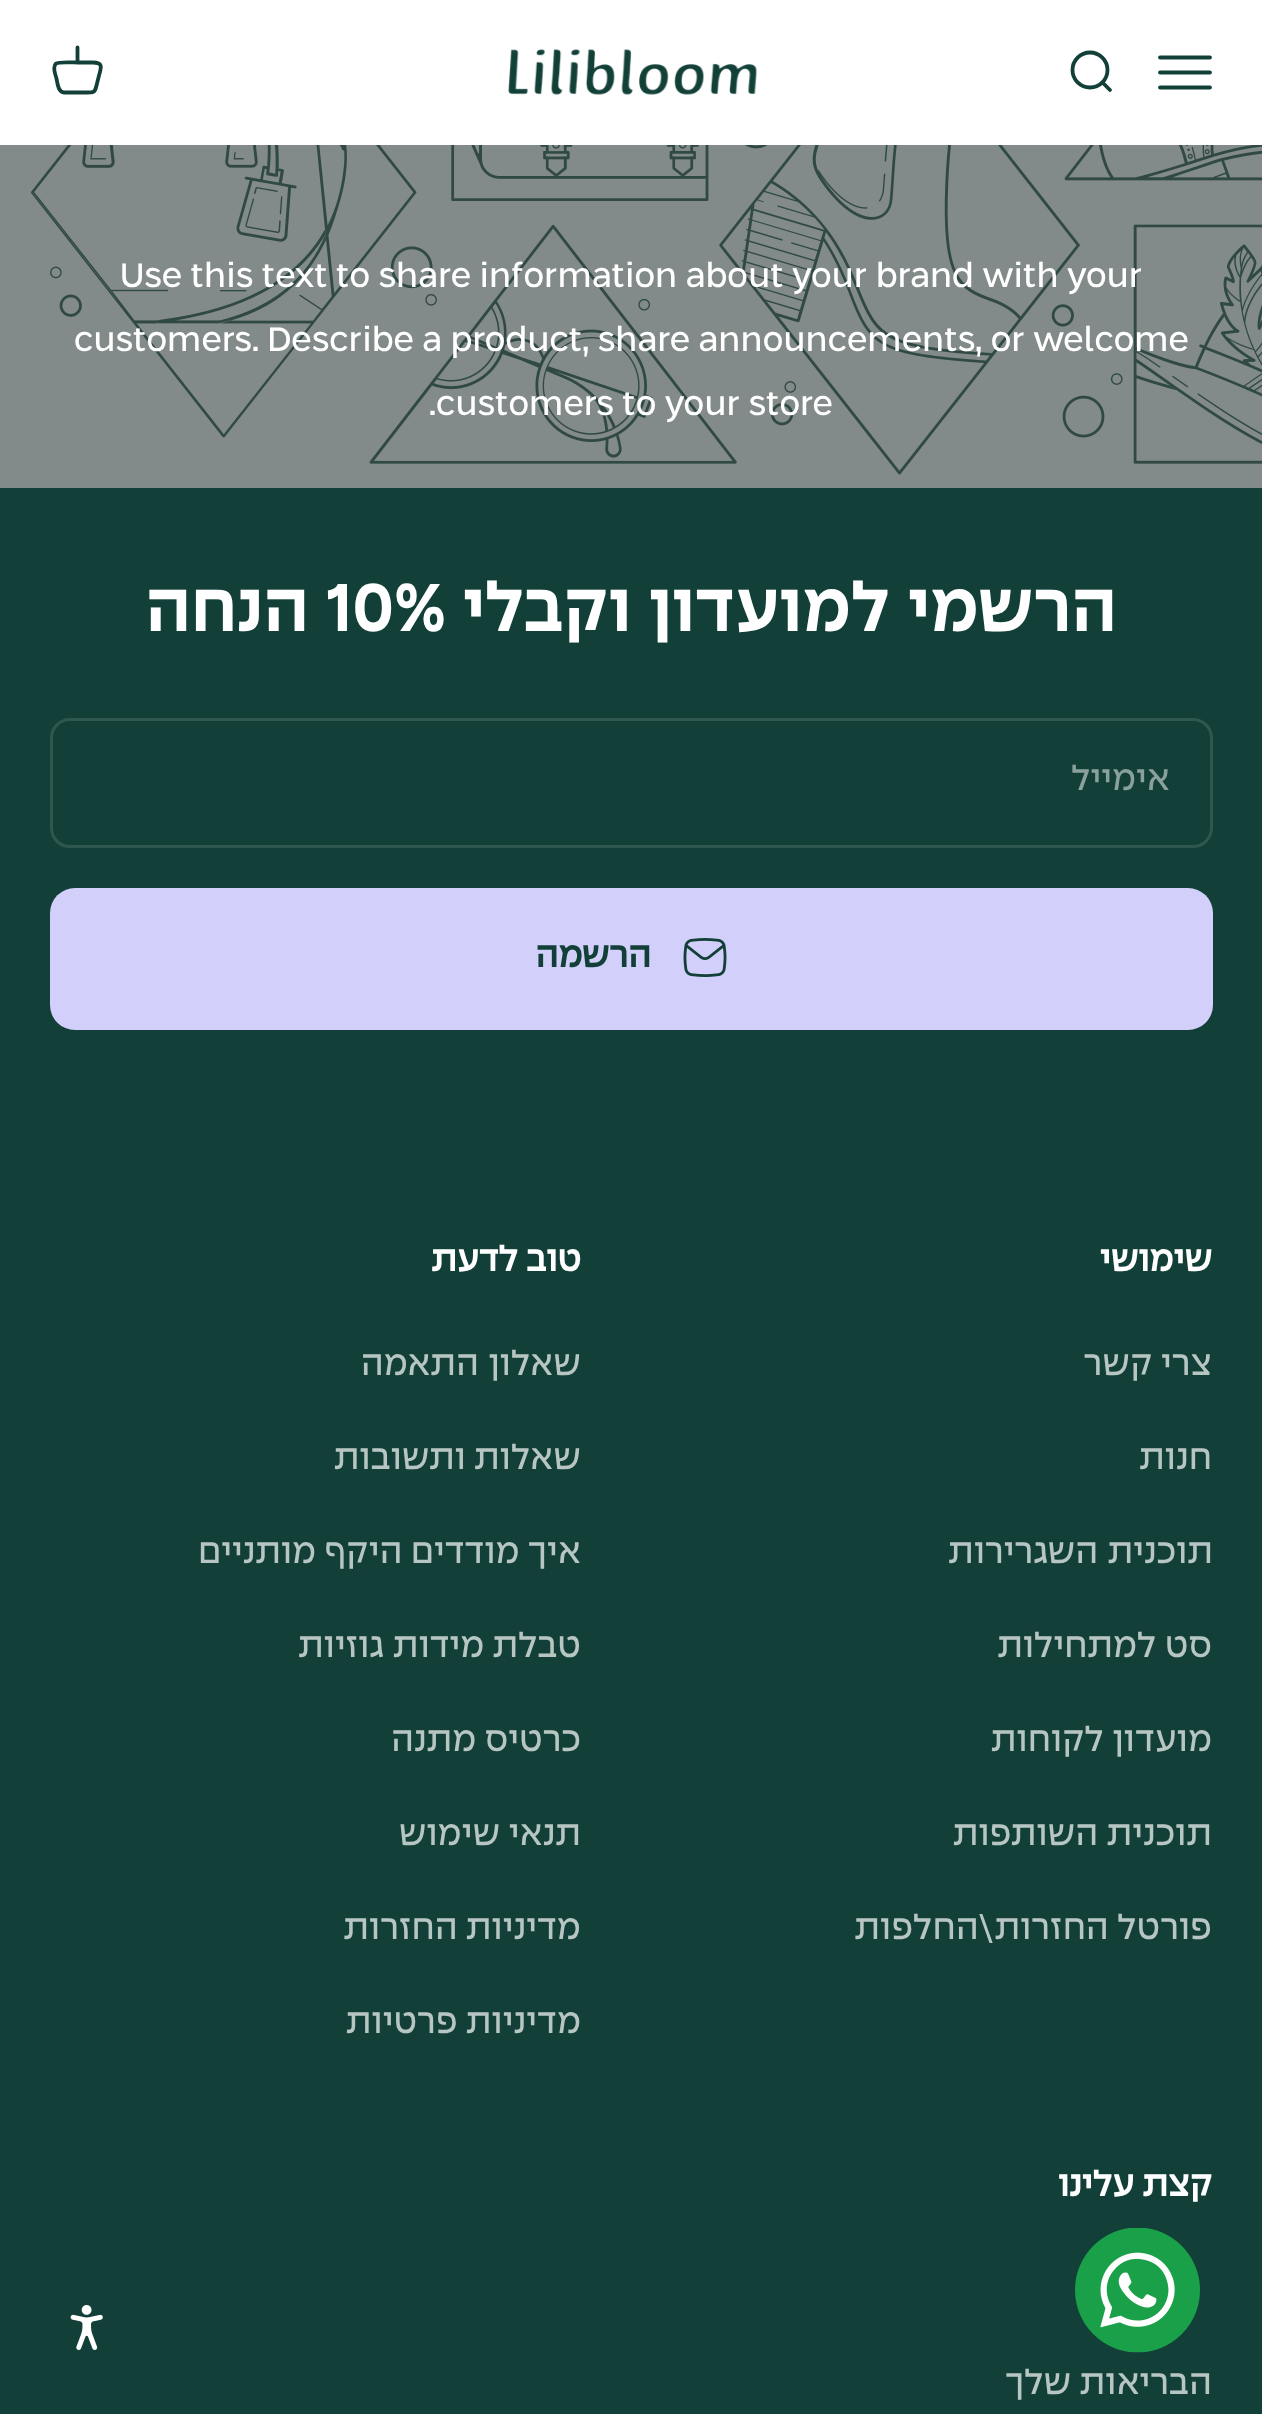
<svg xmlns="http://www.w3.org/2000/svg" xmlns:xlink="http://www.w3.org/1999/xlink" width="1262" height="2414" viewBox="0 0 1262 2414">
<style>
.cls-1{font:40px 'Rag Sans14';fill:#ffffff}
.cls-2{font:600 80px 'Rag Sans14';direction:rtl;fill:#ffffff}
.cls-3{font:600 80px 'Rag Sans14';fill:#ffffff}
.cls-4{font:40px 'Rag Sans14';direction:rtl;fill:#89a09c}
.cls-5{font:bold 40px 'Rag Sans14';direction:rtl;fill:#124038}
.cls-6{font:bold 40px 'Rag Sans14';direction:rtl;fill:#ffffff}
.cls-7{font:40px 'Rag Sans14';direction:rtl;fill:#b8c6c3}
</style>
<rect width="100%" height="100%" fill="#828b89"/>
<rect fill="#ffffff" x="0" y="0" width="1262" height="145"/>
<path fill="none" stroke="#124038" stroke-width="3.8" stroke-linecap="round" d="M1160 57.5H1210M1160 72.5H1210M1160 87.5H1210"/>
<circle fill="none" stroke="#124038" stroke-width="3.8" cx="1090" cy="70" r="17.5"/>
<path fill="none" stroke="#124038" stroke-width="3.8" stroke-linecap="round" stroke-linejoin="round" d="M1102.5 82.5L1110 90"/>
<image xlink:href="image0.png" x="508" y="49" width="249" height="46"/>
<path fill="none" stroke="#124038" stroke-width="3.8" stroke-linecap="round" stroke-linejoin="round" d="M77.5 62.5C73.5 62.5 58.5 61.5 56 63.5C52 67 55.5 75 56.5 78.5C57.5 83 58 92.5 64 92.5H86.5C94 92.5 95 92.5 96.5 85.5L99 75.5C101.5 67 103 62.5 93 62.5ZM77.5 62.5V47.5"/>
<image xlink:href="image1.png" x="31" y="145" width="1231" height="330"/>
<rect fill="#124038" x="0" y="488" width="1262" height="1926"/>
<rect fill="none" stroke="#2e5750" stroke-width="3" x="51.5" y="719.5" width="1160" height="127" rx="18.5"/>
<rect fill="#d2d0fb" x="50" y="888" width="1163" height="142" rx="25"/>
<image xlink:href="image2.png" x="683" y="938" width="44" height="39"/>
<image xlink:href="image3.png" x="1075" y="2228" width="125" height="125"/>
<image xlink:href="image4.png" x="70" y="2305" width="33" height="45"/>
<text class="cls-1" x="120" y="287">Use this text to share information about your brand with your</text>
<text class="cls-1" x="74" y="351">customers. Describe a product, share announcements, or welcome</text>
<text class="cls-1" x="429" y="415">.customers to your store</text>
<text class="cls-2" x="1117" y="631" word-spacing="1">הרשמי למועדון וקבלי</text>
<text class="cls-3" x="326" y="631">10%</text>
<text class="cls-2" x="309" y="631">הנחה</text>
<text class="cls-4" x="1170" y="790">אימייל</text>
<text class="cls-5" x="651" y="967">הרשמה</text>
<text class="cls-6" x="1212" y="1271">שימושי</text>
<text class="cls-7" x="1212" y="1375">צרי קשר</text>
<text class="cls-7" x="1212" y="1469">חנות</text>
<text class="cls-7" x="1213" y="1563" word-spacing="1">תוכנית השגרירות</text>
<text class="cls-7" x="1212" y="1657">סט למתחילות</text>
<text class="cls-7" x="1212" y="1751">מועדון לקוחות</text>
<text class="cls-7" x="1212" y="1845">תוכנית השותפות</text>
<text class="cls-7" x="1212" y="1939">פורטל החזרות\החלפות</text>
<text class="cls-6" x="581" y="1271">טוב לדעת</text>
<text class="cls-7" x="581" y="1375" word-spacing="1">שאלון התאמה</text>
<text class="cls-7" x="581" y="1469">שאלות ותשובות</text>
<text class="cls-7" x="581" y="1563">איך מודדים היקף מותניים</text>
<text class="cls-7" x="581" y="1657">טבלת מידות גוזיות</text>
<text class="cls-7" x="581" y="1751">כרטיס מתנה</text>
<text class="cls-7" x="581" y="1845">תנאי שימוש</text>
<text class="cls-7" x="581" y="1939">מדיניות החזרות</text>
<text class="cls-7" x="581" y="2033">מדיניות פרטיות</text>
<text class="cls-6" x="1212" y="2196">קצת עלינו</text>
<text class="cls-7" x="1212" y="2394">הבריאות שלך</text>
</svg>
